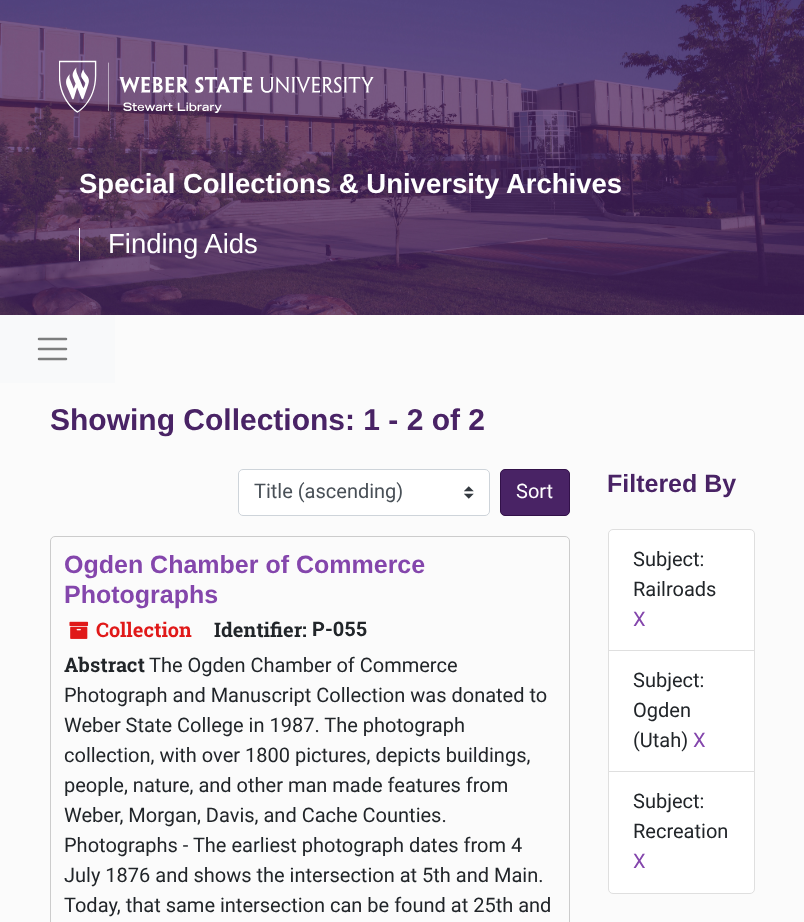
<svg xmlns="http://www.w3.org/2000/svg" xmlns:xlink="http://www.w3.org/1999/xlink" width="804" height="922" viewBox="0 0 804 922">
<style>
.cls-1{font:bold 27.5px Liberation Sans;fill:#ffffff}
.cls-2{font:27.5px Liberation Sans;fill:#ffffff}
.cls-3{font:bold 30px Liberation Sans;fill:#492365}
.cls-4{font:20px Roboto;fill:#495057}
.cls-5{font:20px Roboto;fill:#ffffff}
.cls-6{font:bold 25px Liberation Sans;fill:#8446ac}
.cls-7{font:bold 20px Roboto Slab;fill:#e01919}
.cls-8{font:bold 20px Roboto Slab;fill:#212529}
.cls-9{font:bold 20px Roboto;fill:#212529}
.cls-10{font:20px Roboto;fill:#212529}
.cls-11{font:bold 25px Liberation Sans;fill:#492365}
.cls-12{font:20px Roboto;fill:#8446ac}
</style>
<rect width="100%" height="100%" fill="#fbfbfb"/>
<image xlink:href="image0.png" x="0" y="0" width="804" height="315"/>
<image xlink:href="image1.png" x="59" y="60" width="315" height="53"/>
<rect fill="#ffffff" x="79" y="228" width="1" height="33"/>
<rect fill="#f8f9fa" x="0" y="315" width="115" height="68"/>
<path fill="none" stroke="#7c7d7d" stroke-width="2.5" stroke-linecap="round" d="M39 339H66M39 349H66M39 359H66"/>
<rect fill="#ffffff" x="238" y="469" width="252" height="47" rx="5"/>
<image xlink:href="image2.png" x="464" y="486" width="10" height="13"/>
<rect fill="none" stroke="#ced4da" x="238.5" y="469.5" width="251" height="46" rx="4.5"/>
<rect fill="#492365" stroke="#321149" x="500.5" y="469.5" width="69" height="46" rx="4.5"/>
<rect fill="none" stroke="#cccccc" x="50.5" y="536.5" width="519" height="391" rx="4.5"/>
<image xlink:href="image3.png" x="69" y="621" width="20" height="18"/>
<path fill="#ffffff" stroke="#dfdfdf" d="M613 529.5H750C752.5 529.5 754.5 531.5 754.5 534V650.5H608.5V534C608.5 531.5 610.5 529.5 613 529.5Z"/>
<rect fill="#ffffff" x="609" y="651" width="145" height="120"/>
<rect fill="none" stroke="#dfdfdf" x="608.5" y="650.5" width="146" height="122"/>
<path fill="#ffffff" stroke="#dfdfdf" d="M608.5 771.5H754.5V889C754.5 891.5 752.5 893.5 750 893.5H613C610.5 893.5 608.5 891.5 608.5 889Z"/>
<text class="cls-1" x="79" y="193">Special Collections &amp; University Archives</text>
<text class="cls-2" x="108" y="253">Finding Aids</text>
<text class="cls-3" x="50" y="430">Showing Collections: 1 - 2 of 2</text>
<text class="cls-4" x="254" y="498">Title (ascending)</text>
<text class="cls-5" x="516" y="498">Sort</text>
<text class="cls-6"><tspan x="64" y="573">Ogden Chamber of Commerce</tspan><tspan x="64" y="603">Photographs</tspan></text>
<text class="cls-7" x="96" y="637">Collection</text>
<text class="cls-8" x="214" y="637">Identifier:</text>
<text class="cls-9" x="312" y="636">P-055</text>
<text class="cls-8" x="64" y="672">Abstract</text>
<text class="cls-10" x="149" y="672">The Ogden Chamber of Commerce</text>
<text class="cls-10"><tspan x="64" y="702">Photograph and Manuscript Collection was donated to</tspan><tspan x="64" y="732">Weber State College in 1987. The photograph</tspan><tspan x="64" y="762">collection, with over 1800 pictures, depicts buildings,</tspan><tspan x="64" y="792">people, nature, and other man made features from</tspan><tspan x="64" y="822">Weber, Morgan, Davis, and Cache Counties.</tspan><tspan x="64" y="852">Photographs - The earliest photograph dates from 4</tspan><tspan x="64" y="882">July 1876 and shows the intersection at 5th and Main.</tspan><tspan x="64" y="912">Today, that same intersection can be found at 25th and</tspan></text>
<text class="cls-11" x="607" y="492">Filtered By</text>
<text class="cls-10"><tspan x="633" y="566">Subject:</tspan><tspan x="633" y="596">Railroads</tspan></text>
<text class="cls-12" x="633" y="626">X</text>
<text class="cls-10"><tspan x="633" y="687">Subject:</tspan><tspan x="633" y="717">Ogden</tspan><tspan x="633" y="747">(Utah)</tspan></text>
<text class="cls-12" x="693" y="747">X</text>
<text class="cls-10"><tspan x="633" y="808">Subject:</tspan><tspan x="633" y="838">Recreation</tspan></text>
<text class="cls-12" x="633" y="868">X</text>
</svg>
